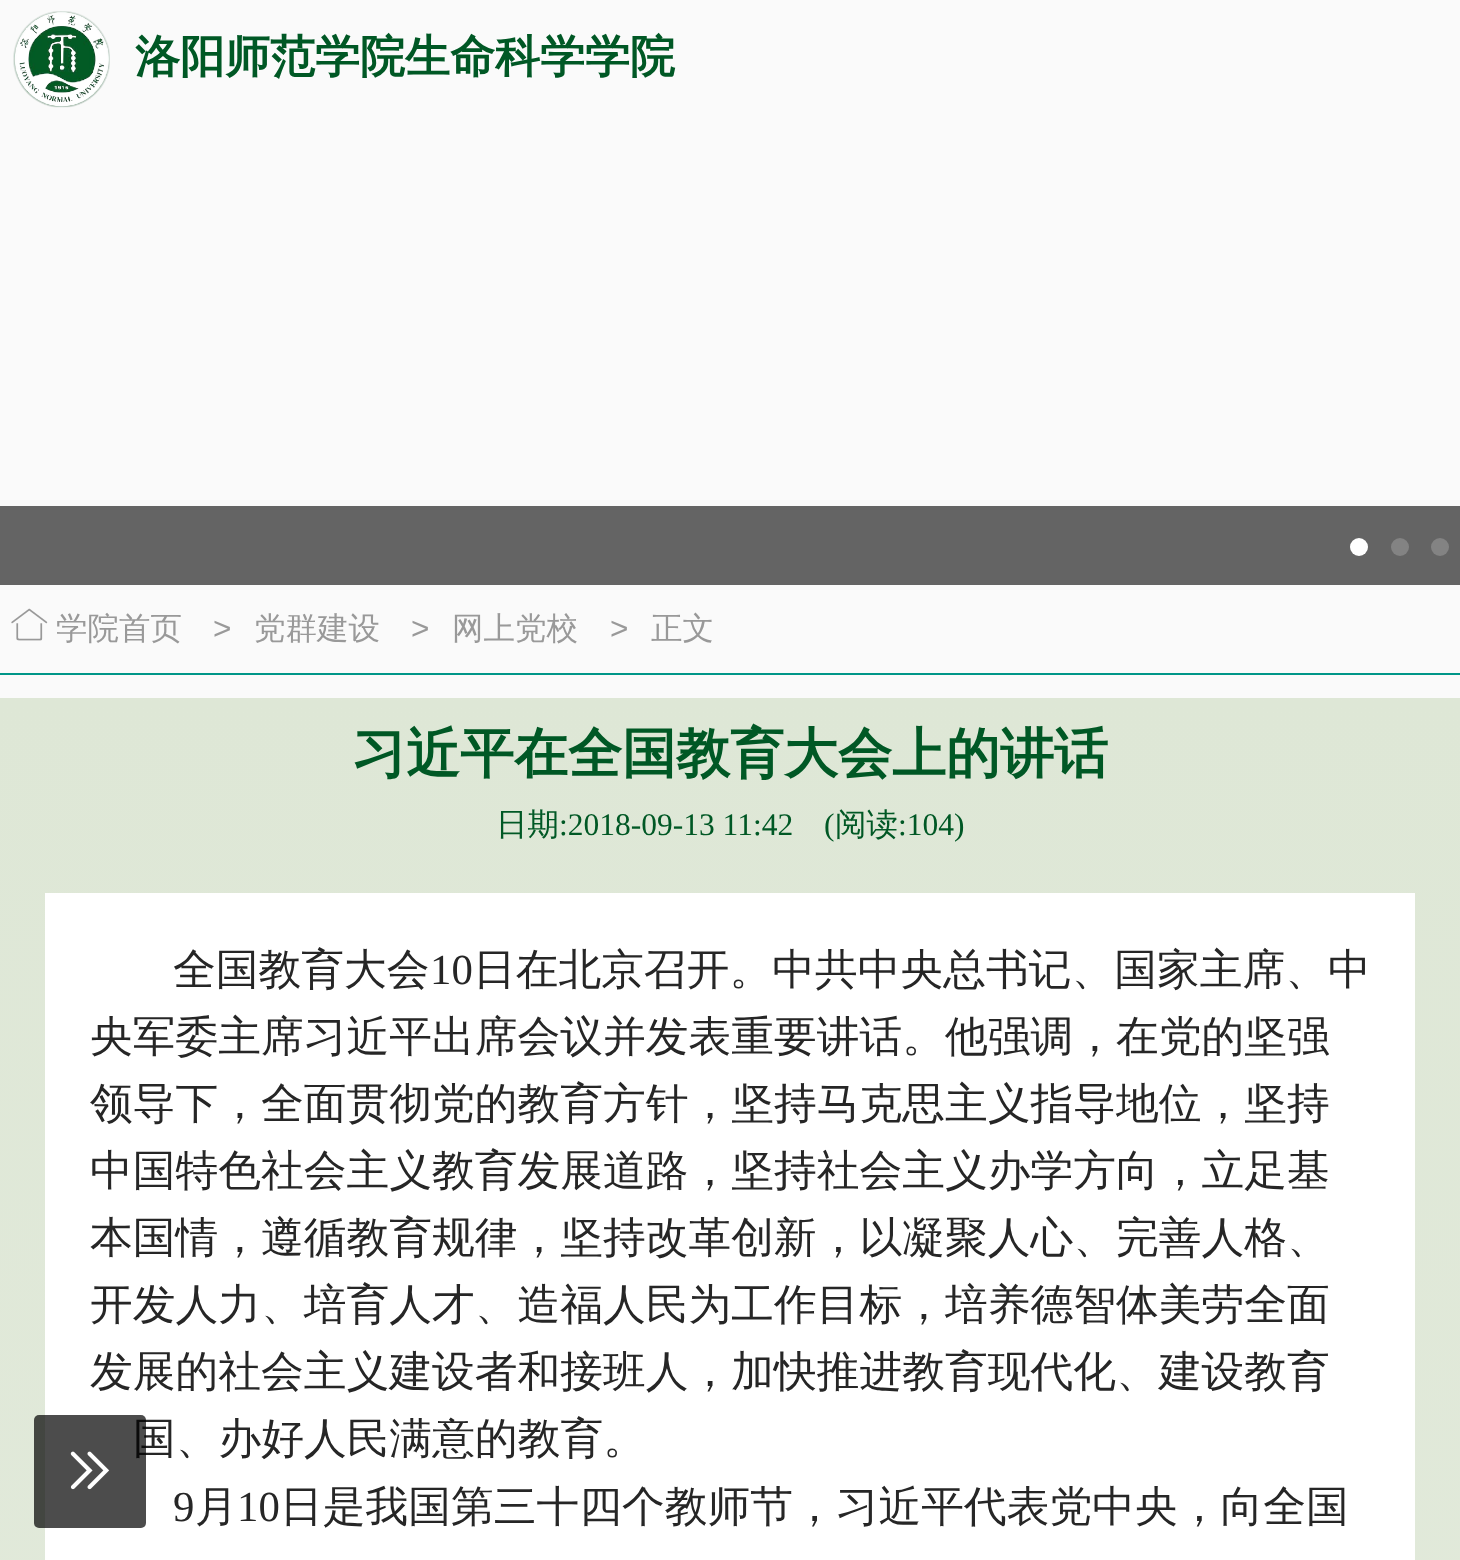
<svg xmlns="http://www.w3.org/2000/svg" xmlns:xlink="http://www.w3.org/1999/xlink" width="1460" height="1560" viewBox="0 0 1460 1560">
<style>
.cls-1{font:bold 45px WenQuanYi Zen Hei;fill:#005825}
.cls-2{font:500 31.5px WenQuanYi Zen Hei;fill:#999999}
.cls-3{font:31.5px Liberation Sans;fill:#999999}
.cls-4{font:bold 54px WenQuanYi Zen Hei;fill:#005825}
.cls-5{font:500 31.5px WenQuanYi Zen Hei;fill:#005825}
.cls-6{font:31.5px Liberation Serif;fill:#005825}
.cls-7{font:500 42.75px WenQuanYi Zen Hei;fill:#262626}
.cls-8{font:42.75px Liberation Serif;fill:#262626}
</style>
<defs>
<linearGradient id="g1" gradientUnits="userSpaceOnUse" x1="730" y1="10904" x2="730" y2="698"><stop offset="0" stop-color="#ffffff"/><stop offset="1" stop-color="#dee7d6"/></linearGradient>
</defs>
<rect width="100%" height="100%" fill="#fafafa"/>
<image xlink:href="image0.png" x="13" y="11" width="97" height="97"/>
<rect fill="#646464" x="0" y="506" width="1460" height="79"/>
<circle fill="#ffffff" cx="1359" cy="547" r="9"/>
<circle fill="#838383" cx="1400" cy="547" r="9"/>
<circle fill="#838383" cx="1440" cy="547" r="9"/>
<image xlink:href="image1.png" x="11" y="608" width="37" height="33"/>
<rect fill="#009688" x="0" y="673" width="1460" height="2"/>
<rect fill="url(#g1)" x="0" y="698" width="1460" height="862"/>
<rect fill="#ffffff" x="45" y="893" width="1370" height="667"/>
<text class="cls-1" x="135" y="72">洛阳师范学院生命科学学院</text>
<text class="cls-2" x="56" y="639">学院首页</text>
<text class="cls-3" x="213" y="639">&gt;</text>
<text class="cls-2" x="254" y="639">党群建设</text>
<text class="cls-3" x="411" y="639">&gt;</text>
<text class="cls-2" x="452" y="639">网上党校</text>
<text class="cls-3" x="610" y="639">&gt;</text>
<text class="cls-2" x="651" y="639">正文</text>
<text class="cls-4" x="352" y="772">习近平在全国教育大会上的讲话</text>
<text class="cls-5" x="496" y="835">日期</text>
<text class="cls-6" x="559" y="835">:2018-09-13 11:42</text>
<text class="cls-6" x="824" y="835">(</text>
<text class="cls-5" x="835" y="835">阅读</text>
<text class="cls-6" x="898" y="835">:104)</text>
<text class="cls-7" x="173" y="984">全国教育大会</text>
<text class="cls-8" x="430" y="984">10</text>
<text class="cls-7" x="473" y="984">日在北京召开。中共中央总书记、国家主席、中</text>
<text class="cls-7"><tspan x="90" y="1051">央军委主席习近平出席会议并发表重要讲话。他强调，在党的坚强</tspan><tspan x="90" y="1118">领导下，全面贯彻党的教育方针，坚持马克思主义指导地位，坚持</tspan><tspan x="90" y="1185">中国特色社会主义教育发展道路，坚持社会主义办学方向，立足基</tspan><tspan x="90" y="1252">本国情，遵循教育规律，坚持改革创新，以凝聚人心、完善人格、</tspan><tspan x="90" y="1319">开发人力、培育人才、造福人民为工作目标，培养德智体美劳全面</tspan><tspan x="90" y="1386">发展的社会主义建设者和接班人，加快推进教育现代化、建设教育</tspan></text>
<text class="cls-7" x="133" y="1453">国、办好人民满意的教育。</text>
<text class="cls-8" x="173" y="1521">9</text>
<text class="cls-7" x="195" y="1521">月</text>
<text class="cls-8" x="237" y="1521">10</text>
<text class="cls-7" x="280" y="1521">日是我国第三十四个教师节，习近平代表党中央，向全国</text>
<rect fill="#000000" fill-opacity="0.7" x="34" y="1415" width="112" height="113" rx="5"/>
<image xlink:href="image2.png" x="70" y="1451" width="40" height="39"/>
</svg>
